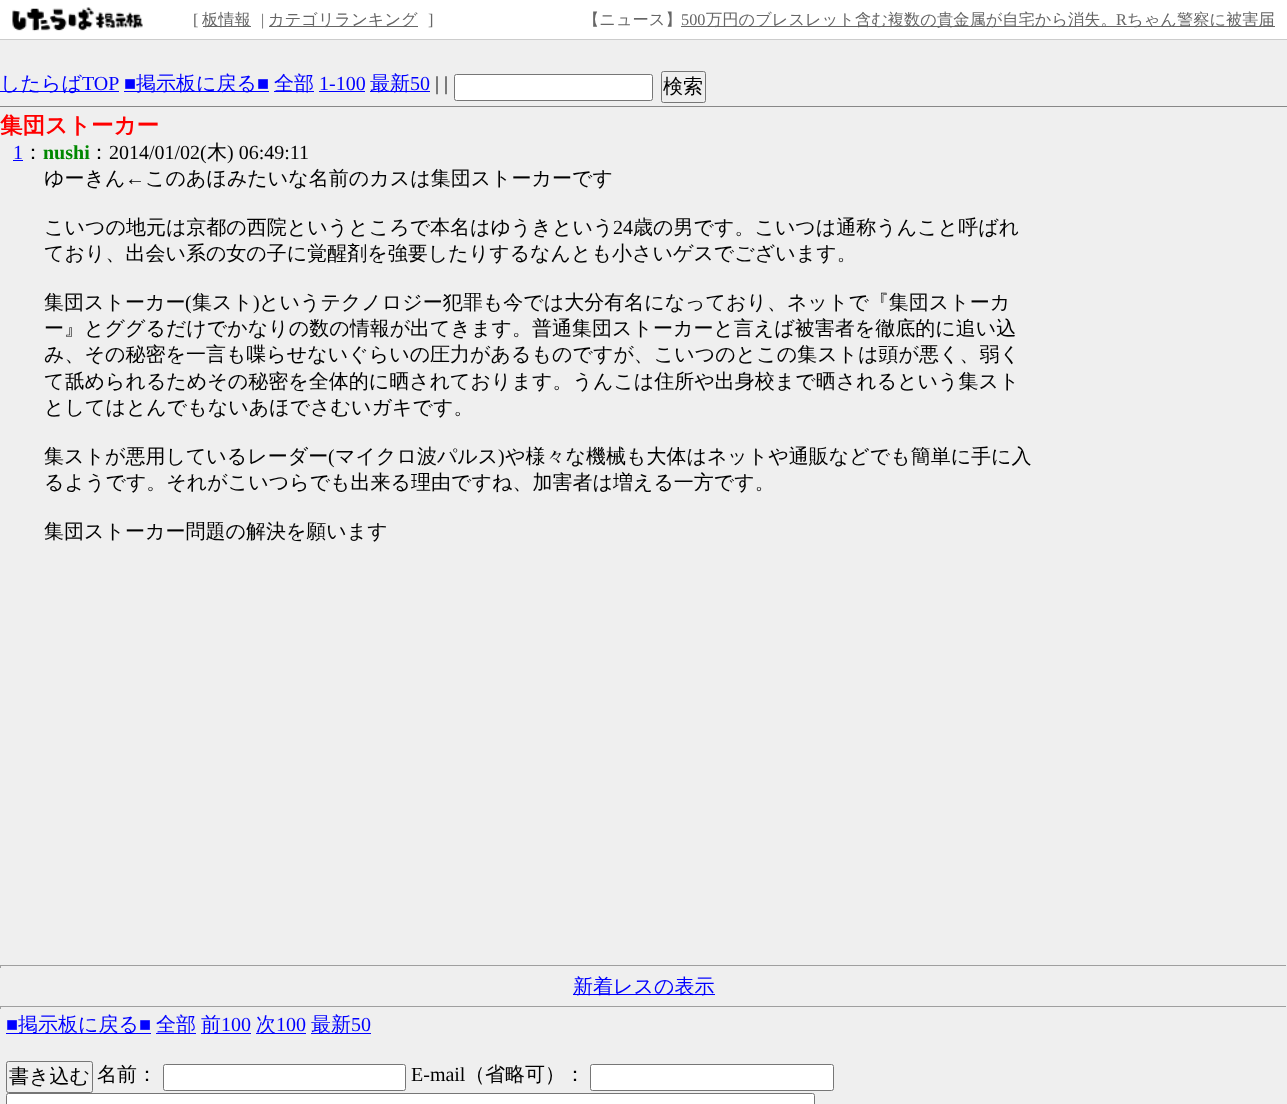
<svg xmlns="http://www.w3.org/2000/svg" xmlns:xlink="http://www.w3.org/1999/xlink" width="1287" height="1104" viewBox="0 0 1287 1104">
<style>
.cls-1{font:16.25px Liberation Serif;fill:#666666}
.cls-2{font:500 16.25px WenQuanYi Zen Hei;fill:#666666}
.cls-3{font:500 20px WenQuanYi Zen Hei;fill:#0000ff}
.cls-4{font:20px Liberation Serif;fill:#0000ff}
.cls-5{font:20px Liberation Serif;fill:#000000}
.cls-6{font:500 20px WenQuanYi Zen Hei;fill:#000000}
.cls-7{font:bold 22.5px WenQuanYi Zen Hei;fill:#ff0000}
.cls-8{font:bold 20px Liberation Serif;fill:#008800}
</style>
<rect width="100%" height="100%" fill="#efefef"/>
<rect fill="#ffffff" x="0" y="0" width="1287" height="39"/>
<rect fill="#cccccc" x="0" y="39" width="1287" height="1"/>
<image xlink:href="image0.png" x="12" y="7" width="131" height="25"/>
<rect fill="#666666" x="203" y="26" width="48" height="1"/>
<rect fill="#666666" x="269" y="26" width="149" height="1"/>
<rect fill="#666666" x="681" y="26" width="594" height="1"/>
<rect fill="#888888" x="0" y="106" width="1287" height="1"/>
<rect fill="#0000ff" x="0" y="91" width="119" height="1"/>
<rect fill="#0000ff" x="124" y="91" width="145" height="1"/>
<rect fill="#0000ff" x="274" y="91" width="40" height="1"/>
<rect fill="#0000ff" x="319" y="91" width="46" height="1"/>
<rect fill="#0000ff" x="370" y="91" width="60" height="1"/>
<rect fill="#ffffff" stroke="#767676" x="454.5" y="74.5" width="198" height="26" rx="2"/>
<rect fill="none" stroke="#767676" x="661.5" y="71.5" width="44" height="31" rx="2"/>
<rect fill="#0000ff" x="13" y="160" width="10" height="1"/>
<rect fill="#9f9f9f" x="0" y="965" width="1287" height="1"/>
<rect fill="#eeeeee" x="1286" y="965" width="1" height="3"/>
<rect fill="#9f9f9f" x="0" y="965" width="1" height="3"/>
<rect fill="#0000ff" x="573" y="994" width="142" height="1"/>
<rect fill="#9f9f9f" x="0" y="1006" width="1287" height="1"/>
<rect fill="#eeeeee" x="1286" y="1006" width="1" height="3"/>
<rect fill="#9f9f9f" x="0" y="1006" width="1" height="3"/>
<rect fill="#0000ff" x="6" y="1033" width="145" height="1"/>
<rect fill="#0000ff" x="156" y="1033" width="40" height="1"/>
<rect fill="#0000ff" x="201" y="1033" width="50" height="1"/>
<rect fill="#0000ff" x="256" y="1033" width="50" height="1"/>
<rect fill="#0000ff" x="311" y="1033" width="60" height="1"/>
<rect fill="none" stroke="#767676" x="6.5" y="1061.5" width="86" height="31" rx="2"/>
<rect fill="#ffffff" stroke="#767676" x="163.5" y="1064.5" width="242" height="26" rx="2"/>
<rect fill="#ffffff" stroke="#767676" x="590.5" y="1064.5" width="243" height="26" rx="2"/>
<rect fill="#ffffff" stroke="#767676" x="6.5" y="1093.5" width="808" height="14" rx="2"/>
<text class="cls-1" x="193" y="25">[</text>
<text class="cls-2" x="202" y="25">板情報</text>
<text class="cls-1" x="261" y="25">|</text>
<text class="cls-2" x="268" y="25">カテゴリランキング</text>
<text class="cls-1" x="428" y="25">]</text>
<text class="cls-2" x="583" y="25">【ニュース】</text>
<text class="cls-1" x="681" y="25">500</text>
<text class="cls-2" x="706" y="25">万円のブレスレット含む複数の貴金属が自宅から消失。</text>
<text class="cls-1" x="1116" y="25">R</text>
<text class="cls-2" x="1127" y="25">ちゃん警察に被害届</text>
<text class="cls-3" x="0" y="90">したらば</text>
<text class="cls-4" x="82" y="90">TOP</text>
<text class="cls-4" x="124" y="90">■</text>
<text class="cls-3" x="136" y="90">掲示板に戻る</text>
<text class="cls-4" x="257" y="90">■</text>
<text class="cls-3" x="274" y="90">全部</text>
<text class="cls-4" x="319" y="90">1-100</text>
<text class="cls-3" x="370" y="90">最新</text>
<text class="cls-4" x="410" y="90">50</text>
<text class="cls-5" x="435" y="90">| |</text>
<text class="cls-6" x="663" y="93">検索</text>
<text class="cls-7" x="0" y="133">集団ストーカー</text>
<text class="cls-4" x="13" y="159">1</text>
<text class="cls-6" x="23" y="159">：</text>
<text class="cls-8" x="43" y="159">nushi</text>
<text class="cls-6" x="89" y="159">：</text>
<text class="cls-5" x="109" y="159">2014/01/02(</text>
<text class="cls-6" x="207" y="159">木</text>
<text class="cls-5" x="227" y="159">) 06:49:11</text>
<text class="cls-6" x="44" y="185">ゆーきん</text>
<text class="cls-5" x="125" y="185">←</text>
<text class="cls-6" x="145" y="185">このあほみたいな名前のカスは集団ストーカーです</text>
<text class="cls-6" x="44" y="234">こいつの地元は京都の西院というところで本名はゆうきという</text>
<text class="cls-5" x="613" y="234">24</text>
<text class="cls-6" x="633" y="234">歳の男です。こいつは通称うんこと呼ばれ</text>
<text class="cls-6" x="44" y="260">ており、出会い系の女の子に覚醒剤を強要したりするなんとも小さいゲスでございます。</text>
<text class="cls-6" x="44" y="309">集団ストーカー</text>
<text class="cls-5" x="185" y="309">(</text>
<text class="cls-6" x="192" y="309">集スト</text>
<text class="cls-5" x="253" y="309">)</text>
<text class="cls-6" x="259" y="309">というテクノロジー犯罪も今では大分有名になっており、ネットで『集団ストーカ</text>
<text class="cls-6"><tspan x="44" y="335">ー』とググるだけでかなりの数の情報が出てきます。普通集団ストーカーと言えば被害者を徹底的に追い込</tspan><tspan x="44" y="361">み、その秘密を一言も喋らせないぐらいの圧力があるものですが、こいつのとこの集ストは頭が悪く、弱く</tspan><tspan x="44" y="388">て舐められるためその秘密を全体的に晒されております。うんこは住所や出身校まで晒されるという集スト</tspan><tspan x="44" y="414">としてはとんでもないあほでさむいガキです。</tspan></text>
<text class="cls-6" x="44" y="463">集ストが悪用しているレーダー</text>
<text class="cls-5" x="328" y="463">(</text>
<text class="cls-6" x="335" y="463">マイクロ波パルス</text>
<text class="cls-5" x="498" y="463">)</text>
<text class="cls-6" x="505" y="463">や様々な機械も大体はネットや通販などでも簡単に手に入</text>
<text class="cls-6" x="44" y="489">るようです。それがこいつらでも出来る理由ですね、加害者は増える一方です。</text>
<text class="cls-6" x="44" y="538">集団ストーカー問題の解決を願います</text>
<text class="cls-3" x="573" y="993">新着レスの表示</text>
<text class="cls-4" x="6" y="1031">■</text>
<text class="cls-3" x="18" y="1031">掲示板に戻る</text>
<text class="cls-4" x="139" y="1031">■</text>
<text class="cls-3" x="156" y="1031">全部</text>
<text class="cls-3" x="201" y="1031">前</text>
<text class="cls-4" x="221" y="1031">100</text>
<text class="cls-3" x="256" y="1031">次</text>
<text class="cls-4" x="276" y="1031">100</text>
<text class="cls-3" x="311" y="1031">最新</text>
<text class="cls-4" x="351" y="1031">50</text>
<text class="cls-6" x="9" y="1083">書き込む</text>
<text class="cls-6" x="97" y="1081">名前：</text>
<text class="cls-5" x="411" y="1081">E-mail</text>
<text class="cls-6" x="465" y="1081">（省略可）：</text>
</svg>
